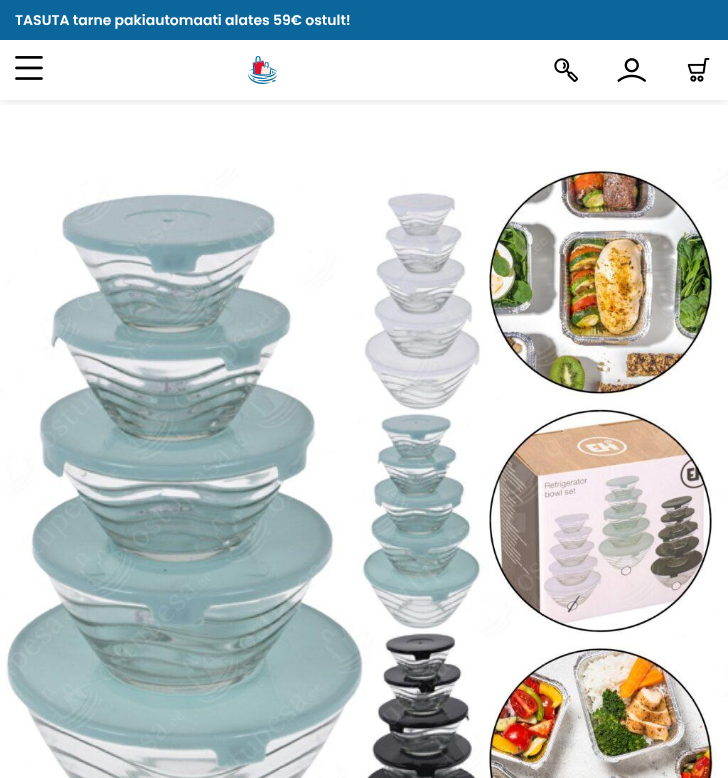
<svg xmlns="http://www.w3.org/2000/svg" xmlns:xlink="http://www.w3.org/1999/xlink" width="728" height="778" viewBox="0 0 728 778">
<style>
.cls-1{font:600 14px Poppins;fill:#ffffff}
</style>
<defs>
<clipPath id="clip1"><rect x="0" y="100" width="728" height="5"/></clipPath>
</defs>
<rect width="100%" height="100%" fill="#ffffff"/>
<g clip-path="url(#clip1)">
<rect fill="#000000" fill-opacity="0.1" filter="blur(4px)" x="0" y="2" width="728" height="100"/>
</g>
<rect fill="#0b669b" x="0" y="0" width="728" height="40"/>
<image xlink:href="image0.png" x="15" y="56" width="28" height="24"/>
<image xlink:href="image1.png" x="248" y="56" width="29" height="28"/>
<image xlink:href="image2.png" x="554" y="58" width="24" height="24"/>
<image xlink:href="image3.png" x="617" y="58" width="29" height="24"/>
<image xlink:href="image4.png" x="687" y="58" width="23" height="24"/>
<image xlink:href="image5.png" x="0" y="168" width="728" height="610"/>
<text class="cls-1" x="15" y="25">TASUTA tarne pakiautomaati alates 59€ ostult!</text>
</svg>
